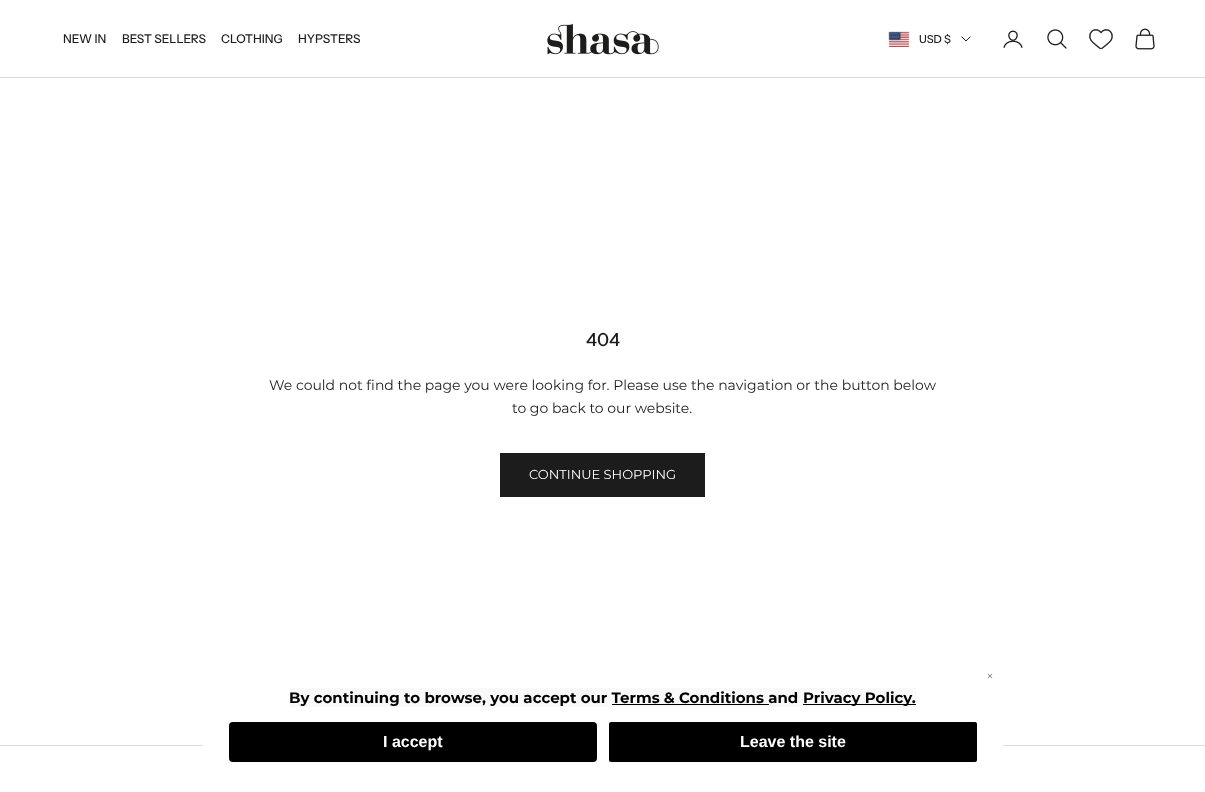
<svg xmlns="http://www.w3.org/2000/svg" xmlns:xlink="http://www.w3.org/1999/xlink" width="1205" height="792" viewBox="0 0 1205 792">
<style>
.cls-1{font:500 12px Instrument Sans;fill:#1c1c1c}
.cls-2{font:500 11px Instrument Sans;fill:#1c1c1c}
.cls-3{font:500 18px Instrument Sans;fill:#1c1c1c}
.cls-4{font:14px Montserrat;fill:#1c1c1c}
.cls-5{font:13px Montserrat;fill:#ffffff}
.cls-6{font:bold 15px Montserrat;fill:#000000}
.cls-7{font:bold 16px Liberation Sans;fill:#ffffff}
</style>
<rect width="100%" height="100%" fill="#ffffff"/>
<rect fill="#dddddd" x="0" y="77" width="1205" height="1"/>
<image xlink:href="image0.png" x="547" y="23" width="112" height="32"/>
<image xlink:href="image1.png" x="888" y="31" width="22" height="16"/>
<path fill="none" stroke="#1c1c1c" stroke-linecap="square" d="M962 37L966 41L970 37"/>
<image xlink:href="image2.png" x="1003" y="30" width="20" height="18"/>
<image xlink:href="image3.png" x="1047" y="29" width="20" height="20"/>
<image xlink:href="image4.png" x="1089" y="29" width="24" height="20"/>
<image xlink:href="image5.png" x="1135" y="28" width="20" height="22"/>
<rect fill="#1c1c1c" stroke="#1c1c1c" x="500.5" y="453.5" width="204" height="43"/>
<rect fill="#dddddd" x="0" y="745" width="1205" height="1"/>
<rect fill="#ffffff" x="203" y="663" width="800" height="129" rx="4"/>
<image xlink:href="image6.png" x="987" y="673" width="6" height="6"/>
<rect fill="#f9f9f9" x="289" y="688" width="627" height="19"/>
<rect fill="#000000" x="612" y="704" width="157" height="1"/>
<rect fill="#000000" x="803" y="704" width="113" height="1"/>
<rect fill="#000000" x="229" y="722" width="368" height="40" rx="4"/>
<rect fill="#000000" x="609" y="722" width="368" height="40" rx="2"/>
<text class="cls-1" x="63" y="43">NEW IN</text>
<text class="cls-1" x="122" y="43">BEST SELLERS</text>
<text class="cls-1" x="221" y="43">CLOTHING</text>
<text class="cls-1" x="298" y="43">HYPSTERS</text>
<text class="cls-2" x="919" y="43">USD $</text>
<text class="cls-3" x="586" y="346">404</text>
<text class="cls-4" x="269" y="390">We could not find the page you were looking for. Please use the navigation or the button below</text>
<text class="cls-4" x="512" y="413">to go back to our website.</text>
<text class="cls-5" x="529" y="479">CONTINUE SHOPPING</text>
<text class="cls-6" x="289" y="703">By continuing to browse, you accept our Terms &amp; Conditions and</text>
<text class="cls-6" x="803" y="703">Privacy Policy.</text>
<text class="cls-7" x="383" y="747">I accept</text>
<text class="cls-7" x="740" y="747">Leave the site</text>
</svg>
